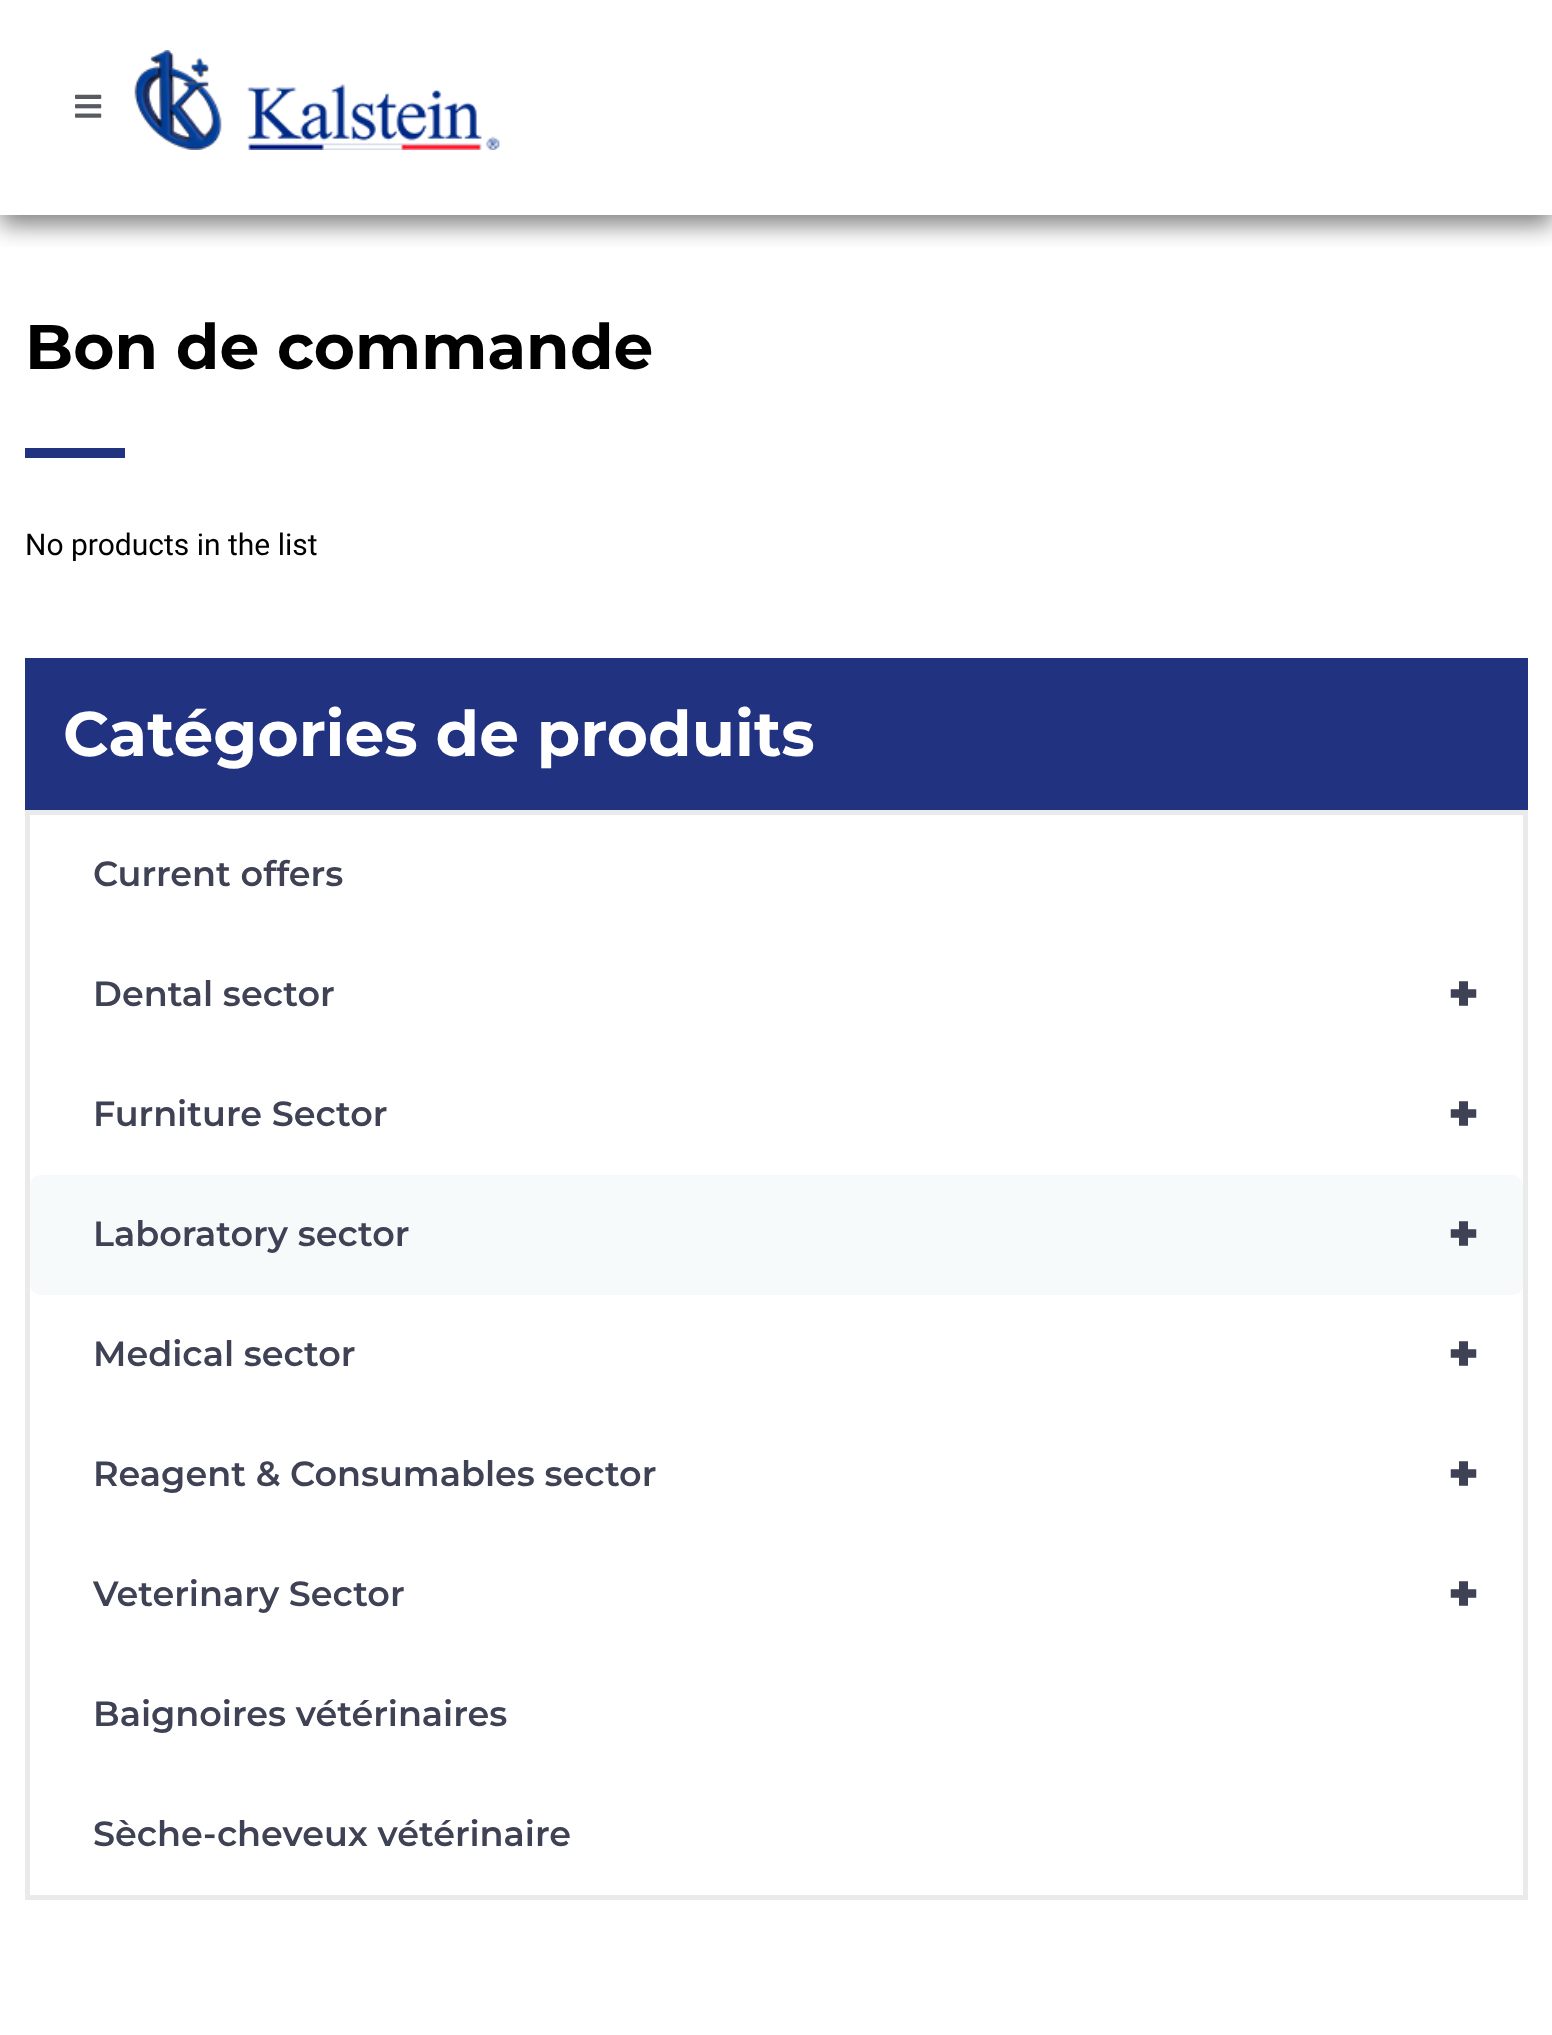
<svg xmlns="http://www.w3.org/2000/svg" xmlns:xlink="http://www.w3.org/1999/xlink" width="1552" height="2035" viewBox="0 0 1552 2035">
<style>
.cls-1{font:bold 63px Montserrat;fill:#000000}
.cls-2{font:30px Roboto;fill:#000000}
.cls-3{font:bold 63px Montserrat;fill:#ffffff}
.cls-4{font:600 35px Montserrat;fill:#3f4254}
.cls-5{font:900 50px Montserrat;fill:#3f4254}
</style>
<defs>
<clipPath id="clip1"><rect x="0" y="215" width="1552" height="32"/></clipPath>
</defs>
<rect width="100%" height="100%" fill="#ffffff"/>
<g clip-path="url(#clip1)">
<rect fill="#000000" fill-opacity="0.5" filter="blur(12.5px)" x="0" y="10" width="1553" height="215"/>
</g>
<image xlink:href="image0.png" x="75" y="94" width="27" height="24"/>
<image xlink:href="image1.png" x="134" y="50" width="366" height="100"/>
<rect fill="#213280" x="25" y="448" width="100" height="10"/>
<rect fill="#213280" x="25" y="658" width="1503" height="152"/>
<rect fill="none" stroke="#eaeaea" stroke-width="5" x="27.5" y="812.5" width="1498" height="1085"/>
<rect fill="#f7fafb" x="30" y="1175" width="1493" height="120" rx="10"/>
<text class="cls-1" x="25" y="369">Bon de commande</text>
<text class="cls-2" x="25" y="555">No products in the list</text>
<text class="cls-3" x="63" y="756">Catégories de produits</text>
<text class="cls-4" x="93" y="886">Current offers</text>
<text class="cls-4" x="93" y="1006">Dental sector</text>
<text class="cls-5" x="1448" y="1011">+</text>
<text class="cls-4" x="93" y="1126">Furniture Sector</text>
<text class="cls-5" x="1448" y="1131">+</text>
<text class="cls-4" x="93" y="1246">Laboratory sector</text>
<text class="cls-5" x="1448" y="1251">+</text>
<text class="cls-4" x="93" y="1366">Medical sector</text>
<text class="cls-5" x="1448" y="1371">+</text>
<text class="cls-4" x="93" y="1486">Reagent &amp; Consumables sector</text>
<text class="cls-5" x="1448" y="1491">+</text>
<text class="cls-4" x="93" y="1606">Veterinary Sector</text>
<text class="cls-5" x="1448" y="1611">+</text>
<text class="cls-4" x="93" y="1726">Baignoires vétérinaires</text>
<text class="cls-4" x="93" y="1846">Sèche-cheveux vétérinaire</text>
</svg>
